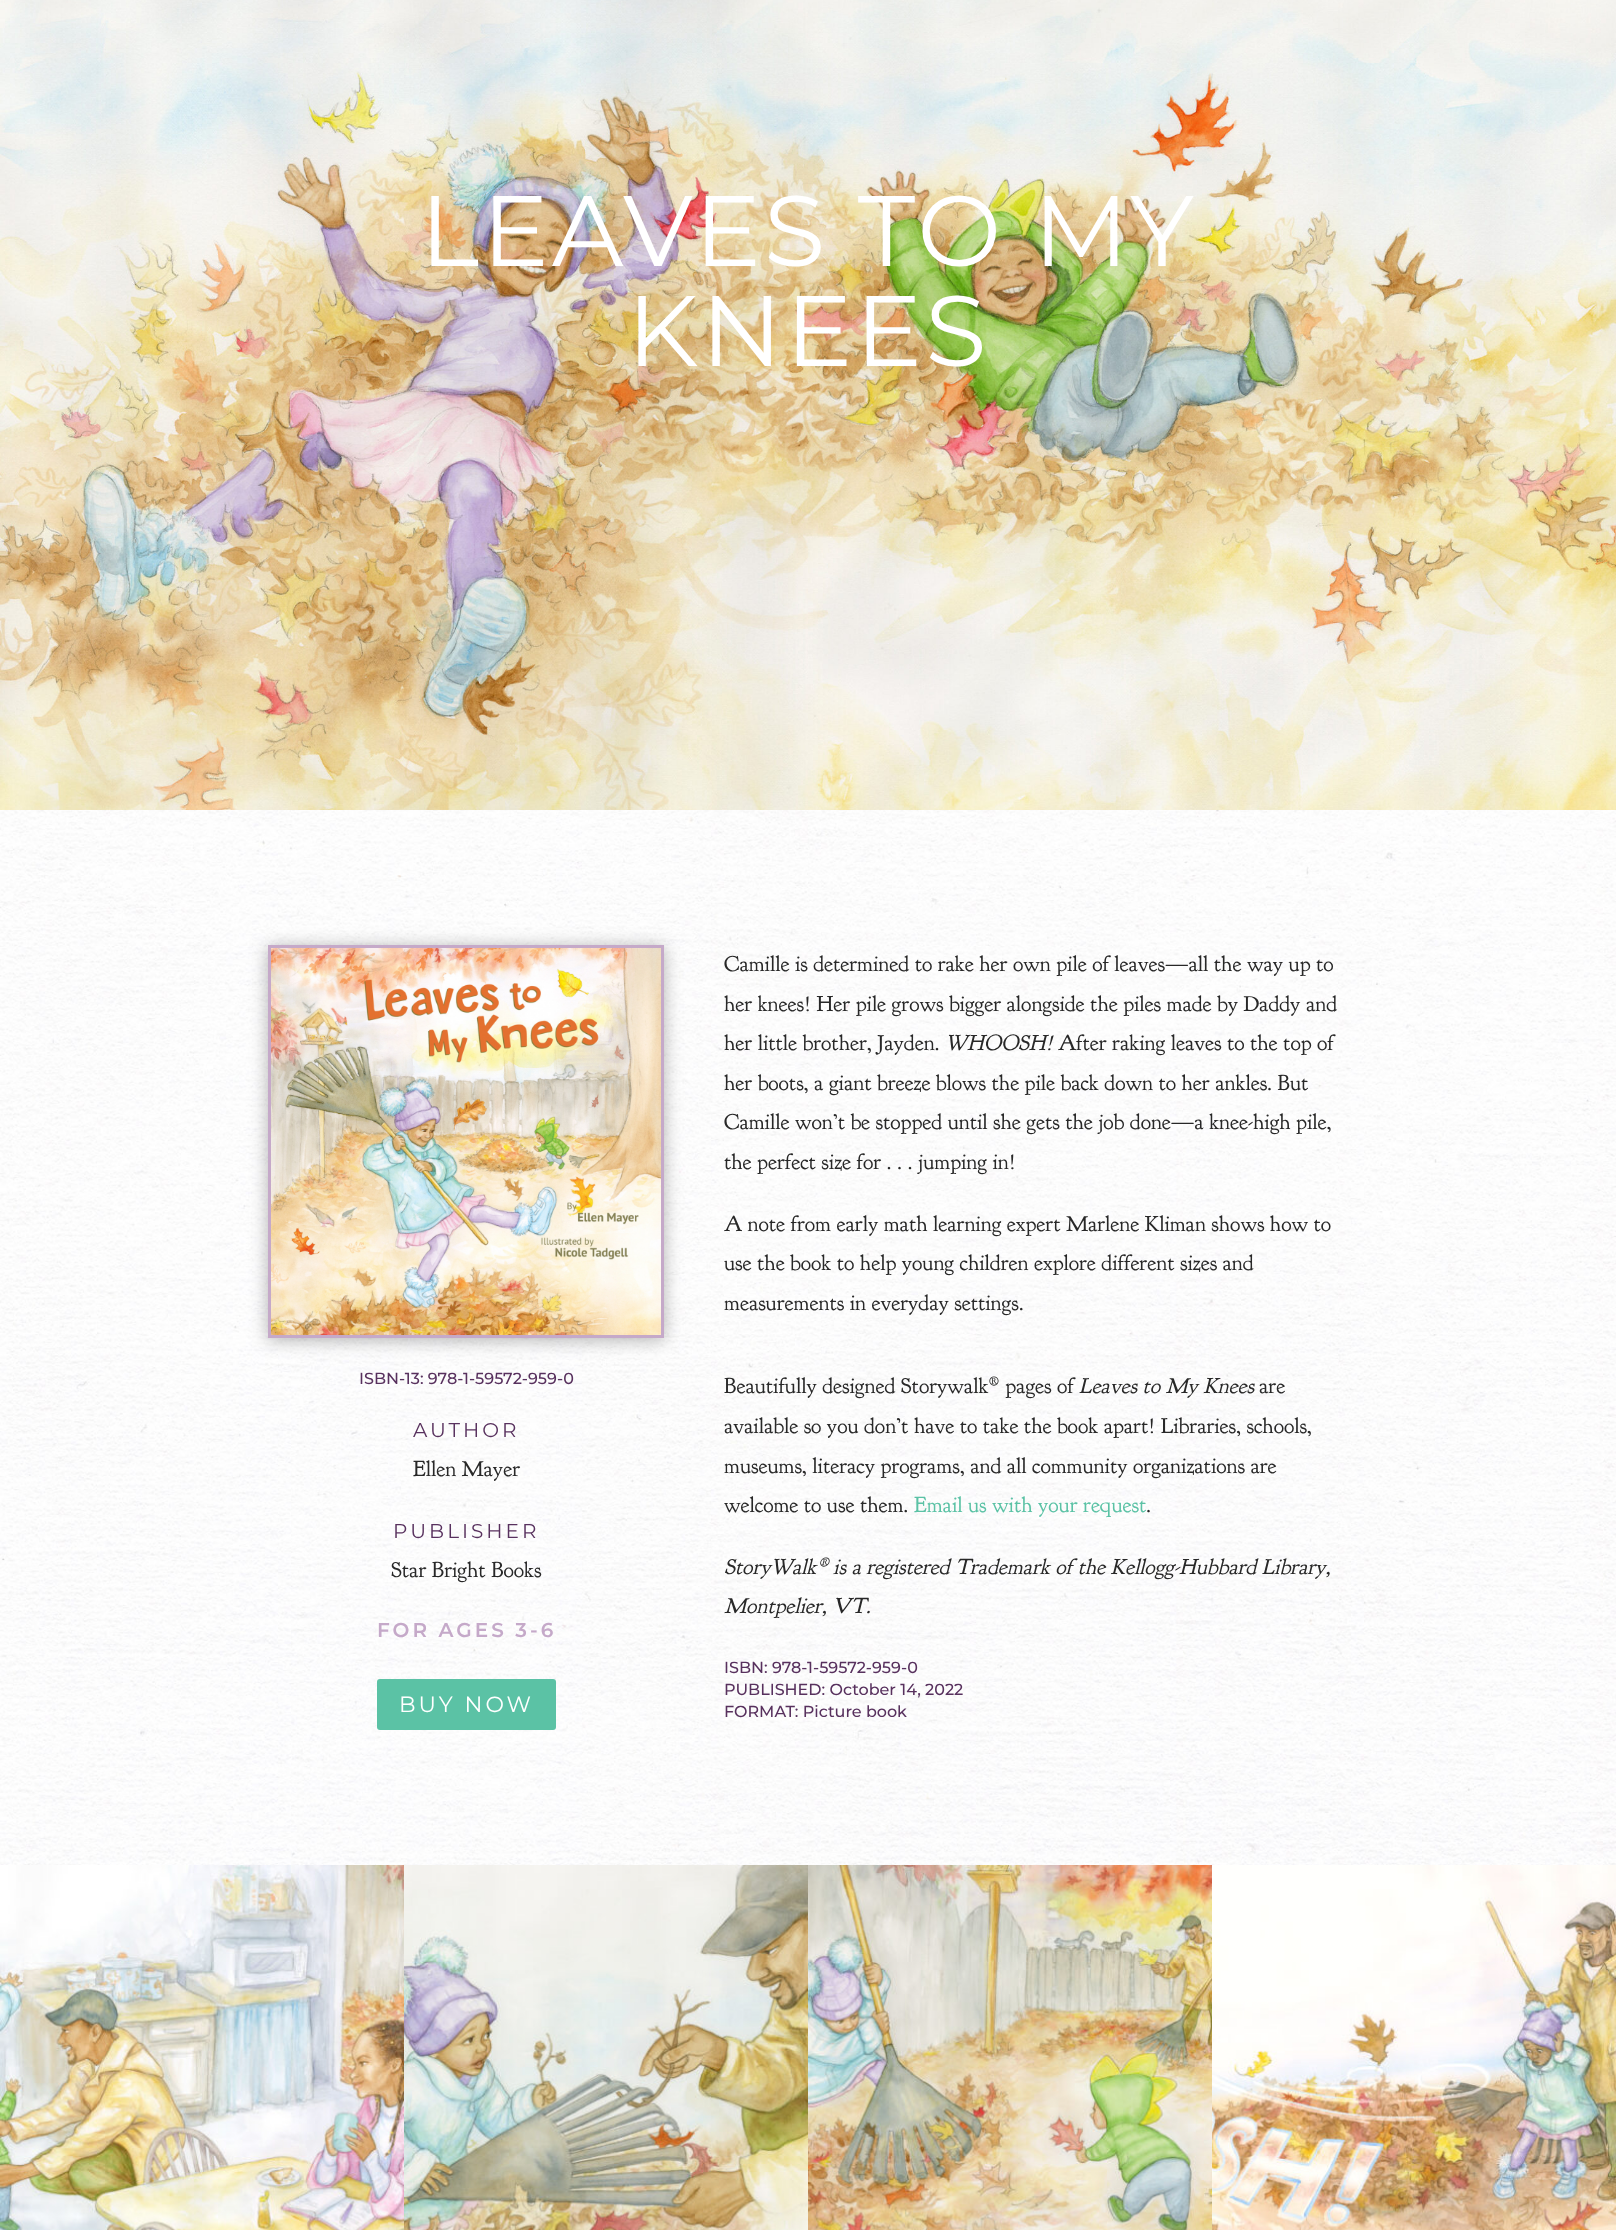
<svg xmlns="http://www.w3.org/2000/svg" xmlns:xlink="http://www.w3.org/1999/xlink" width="1616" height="2230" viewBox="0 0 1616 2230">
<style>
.cls-1{font:100px Montserrat;letter-spacing:3px;fill:#ffffff}
.cls-2{font:500 16px Montserrat;fill:#58315e}
.cls-3{font:20px Montserrat;letter-spacing:3px;fill:#58315e}
.cls-4{font:22px 'Goudy Bookletter 1911';fill:#282828}
.cls-5{font:600 20px Montserrat;letter-spacing:3px;fill:#c5a9c9}
.cls-6{font:22px Montserrat;letter-spacing:3px;fill:#ffffff}
.cls-7{font:italic 22px 'Goudy Bookletter 1911';fill:#282828}
.cls-8{font:22px 'Goudy Bookletter 1911';fill:#5bc2a5}
</style>
<rect width="100%" height="100%" fill="#ffffff"/>
<image xlink:href="image0.png" x="0" y="0" width="1616" height="810"/>
<image xlink:href="image1.png" x="0" y="810" width="1616" height="1055"/>
<rect fill="#000000" fill-opacity="0.3" filter="blur(9px)" x="268" y="947" width="396" height="393"/>
<rect fill="none" stroke="#c5a9c9" stroke-width="3" x="269.5" y="946.5" width="393" height="390"/>
<image xlink:href="image2.png" x="271" y="948" width="390" height="387"/>
<rect fill="#5bc2a5" x="377" y="1679" width="179" height="51" rx="3"/>
<image xlink:href="image3.png" x="0" y="1865" width="404" height="365"/>
<image xlink:href="image4.png" x="404" y="1865" width="404" height="365"/>
<image xlink:href="image5.png" x="808" y="1865" width="404" height="365"/>
<image xlink:href="image6.png" x="1212" y="1865" width="404" height="365"/>
<text class="cls-1" x="420" y="266">LEAVES TO MY</text>
<text class="cls-1" x="627" y="366">KNEES</text>
<text class="cls-2" x="359" y="1384">ISBN-13: 978-1-59572-959-0</text>
<text class="cls-3" x="413" y="1437">AUTHOR</text>
<text class="cls-4" x="413" y="1476">Ellen Mayer</text>
<text class="cls-3" x="393" y="1538">PUBLISHER</text>
<text class="cls-4" x="391" y="1577">Star Bright Books</text>
<text class="cls-5" x="377" y="1637">FOR AGES 3-6</text>
<text class="cls-6" x="399" y="1712">BUY NOW</text>
<text class="cls-4"><tspan x="724" y="971">Camille is determined to rake her own pile of leaves—all the way up to</tspan><tspan x="724" y="1011">her knees! Her pile grows bigger alongside the piles made by Daddy and</tspan><tspan x="724" y="1050">her little brother, Jayden.</tspan></text>
<text class="cls-7" x="945" y="1050">WHOOSH!</text>
<text class="cls-4" x="1058" y="1050">After raking leaves to the top of</text>
<text class="cls-4"><tspan x="724" y="1090">her boots, a giant breeze blows the pile back down to her ankles. But</tspan><tspan x="724" y="1129">Camille won’t be stopped until she gets the job done—a knee-high pile,</tspan><tspan x="724" y="1169">the perfect size for . . . jumping in!</tspan></text>
<text class="cls-4"><tspan x="724" y="1231">A note from early math learning expert Marlene Kliman shows how to</tspan><tspan x="724" y="1270">use the book to help young children explore different sizes and</tspan><tspan x="724" y="1310">measurements in everyday settings.</tspan></text>
<text class="cls-4" x="724" y="1393">Beautifully designed Storywalk® pages of</text>
<text class="cls-7" x="1079" y="1393">Leaves to My Knees</text>
<text class="cls-4" x="1259" y="1393">are</text>
<text class="cls-4"><tspan x="724" y="1433">available so you don’t have to take the book apart! Libraries, schools,</tspan><tspan x="724" y="1473">museums, literacy programs, and all community organizations are</tspan><tspan x="724" y="1512">welcome to use them.</tspan></text>
<text class="cls-8" x="914" y="1512">Email us with your request</text>
<text class="cls-4" x="1146" y="1512">.</text>
<text class="cls-7"><tspan x="724" y="1574">StoryWalk® is a registered Trademark of the Kellogg-Hubbard Library,</tspan><tspan x="724" y="1613">Montpelier, VT.</tspan></text>
<text class="cls-2"><tspan x="724" y="1673">ISBN: 978-1-59572-959-0</tspan><tspan x="724" y="1695">PUBLISHED: October 14, 2022</tspan><tspan x="724" y="1717">FORMAT: Picture book</tspan></text>
</svg>
